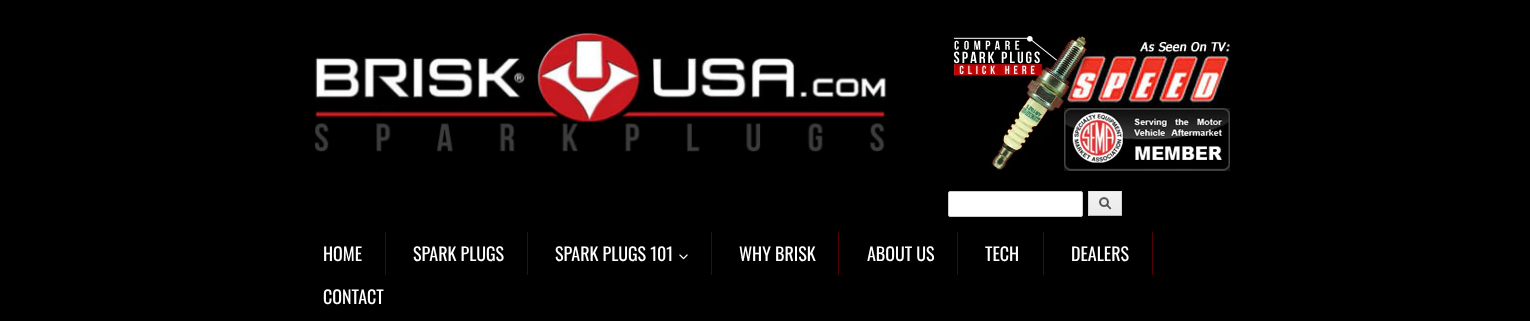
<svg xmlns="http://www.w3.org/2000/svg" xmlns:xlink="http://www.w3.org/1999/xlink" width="1530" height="321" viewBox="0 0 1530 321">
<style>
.cls-1{font:18px Oswald;fill:#ffffff}
</style>
<rect width="100%" height="100%" fill="#000000"/>
<image xlink:href="image0.png" x="315" y="32" width="572" height="120"/>
<image xlink:href="image1.png" x="950" y="32" width="280" height="139"/>
<rect fill="#ffffff" stroke="#cccccc" x="948.5" y="191.5" width="134" height="25" rx="1.5"/>
<image xlink:href="image2.png" x="1089" y="192" width="32" height="23"/>
<rect fill="#e4e4e4" x="1088" y="191" width="34" height="1"/>
<rect fill="#d2d2d2" x="1121" y="191" width="1" height="25"/>
<rect fill="#b4b4b4" x="1088" y="215" width="34" height="1"/>
<rect fill="#d2d2d2" x="1088" y="191" width="1" height="25"/>
<rect fill="#510004" x="385" y="232" width="1" height="43"/>
<rect fill="#510004" x="527" y="232" width="1" height="43"/>
<rect fill="#510004" x="711" y="232" width="1" height="43"/>
<image xlink:href="image3.png" x="679" y="254" width="9" height="6"/>
<rect fill="#510004" x="838" y="232" width="1" height="43"/>
<rect fill="#510004" x="957" y="232" width="1" height="43"/>
<rect fill="#510004" x="1043" y="232" width="1" height="43"/>
<rect fill="#510004" x="1152" y="232" width="1" height="43"/>
<text class="cls-1" x="323" y="261">HOME</text>
<text class="cls-1" x="413" y="261">SPARK PLUGS</text>
<text class="cls-1" x="555" y="261">SPARK PLUGS 101</text>
<text class="cls-1" x="739" y="261">WHY BRISK</text>
<text class="cls-1" x="867" y="261">ABOUT US</text>
<text class="cls-1" x="985" y="261">TECH</text>
<text class="cls-1" x="1071" y="261">DEALERS</text>
<text class="cls-1" x="323" y="304">CONTACT</text>
</svg>
